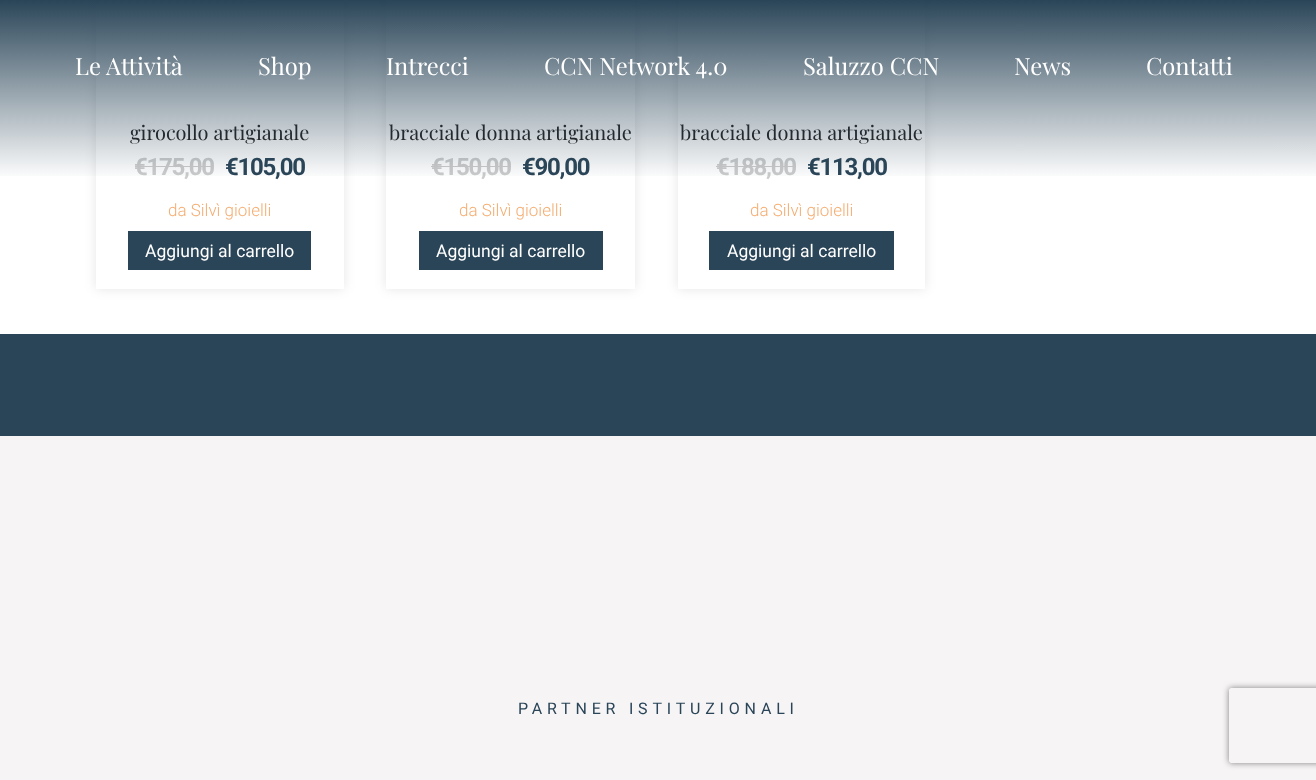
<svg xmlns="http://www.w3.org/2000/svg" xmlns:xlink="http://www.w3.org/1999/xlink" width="1316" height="780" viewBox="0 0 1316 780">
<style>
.cls-1{font:20px Playfair Display;fill:#222222}
.cls-2{font:bold 24px Roboto;letter-spacing:-1.25px;fill:#cccccc}
.cls-3{font:bold 24px Roboto;letter-spacing:-1.25px;fill:#2a4558}
.cls-4{font:300 17px Roboto;fill:#f5ad71}
.cls-5{font:17.5px Roboto;fill:#ffffff}
.cls-6{font:23.75px Playfair Display;fill:#ffffff}
.cls-7{font:16px Roboto;letter-spacing:4.8px;fill:#2a4558}
</style>
<defs>
<clipPath id="clip1"><path d="M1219 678H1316V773H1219ZM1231.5 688H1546.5C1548 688 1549 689 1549 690.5V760.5C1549 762 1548 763 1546.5 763H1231.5C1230 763 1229 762 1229 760.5V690.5C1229 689 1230 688 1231.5 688Z" clip-rule="evenodd"/></clipPath>
<linearGradient id="g1" gradientUnits="userSpaceOnUse" x1="658" y1="0" x2="658" y2="180"><stop offset="0" stop-color="#2a4558"/><stop offset="1" stop-color="#2a4558" stop-opacity="0"/></linearGradient>
</defs>
<rect width="100%" height="100%" fill="#ffffff"/>
<rect fill="#000000" fill-opacity="0.1" filter="blur(6px)" x="96" y="-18" width="248" height="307"/>
<rect fill="#ffffff" x="96" y="1" width="248" height="288"/>
<rect fill="#cccccc" x="135" y="166" width="79" height="1"/>
<rect fill="#2a4558" x="128" y="231" width="183" height="39"/>
<rect fill="#000000" fill-opacity="0.1" filter="blur(6px)" x="386" y="-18" width="249" height="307"/>
<rect fill="#ffffff" x="386" y="1" width="249" height="288"/>
<rect fill="#cccccc" x="431" y="166" width="80" height="1"/>
<rect fill="#2a4558" x="419" y="231" width="184" height="39"/>
<rect fill="#000000" fill-opacity="0.1" filter="blur(6px)" x="678" y="-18" width="247" height="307"/>
<rect fill="#ffffff" x="678" y="1" width="247" height="288"/>
<rect fill="#cccccc" x="716" y="166" width="80" height="1"/>
<rect fill="#2a4558" x="709" y="231" width="185" height="39"/>
<rect fill="#2a4558" x="0" y="334" width="1316" height="102"/>
<rect fill="#f6f4f5" x="0" y="436" width="1316" height="344"/>
<g clip-path="url(#clip1)">
<rect fill="#808080" filter="blur(3px)" x="1229" y="688" width="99" height="75" rx="2.5"/>
</g>
<text class="cls-1" x="130" y="140">girocollo artigianale</text>
<text class="cls-2" x="134" y="175">€175,00</text>
<text class="cls-3" x="225" y="175">€105,00</text>
<text class="cls-4" x="168" y="216">da Silvì gioielli</text>
<text class="cls-5" x="145" y="257">Aggiungi al carrello</text>
<text class="cls-1" x="389" y="140">bracciale donna artigianale</text>
<text class="cls-2" x="431" y="175">€150,00</text>
<text class="cls-3" x="522" y="175">€90,00</text>
<text class="cls-4" x="459" y="216">da Silvì gioielli</text>
<text class="cls-5" x="436" y="257">Aggiungi al carrello</text>
<text class="cls-1" x="680" y="140">bracciale donna artigianale</text>
<text class="cls-2" x="716" y="175">€188,00</text>
<text class="cls-3" x="807" y="175">€113,00</text>
<rect fill="url(#g1)" x="0" y="0" width="1316" height="176"/>
<text class="cls-6" x="1146" y="75">Contatti</text>
<text class="cls-6" x="1014" y="75">News</text>
<text class="cls-6" x="803" y="75">Saluzzo CCN</text>
<text class="cls-6" x="544" y="75">CCN Network 4.0</text>
<text class="cls-6" x="386" y="75">Intrecci</text>
<text class="cls-6" x="258" y="75">Shop</text>
<text class="cls-6" x="75" y="75">Le Attività</text>
<text class="cls-4" x="750" y="216">da Silvì gioielli</text>
<text class="cls-5" x="727" y="257">Aggiungi al carrello</text>
<text class="cls-7" x="518" y="714">PARTNER ISTITUZIONALI</text>
</svg>
